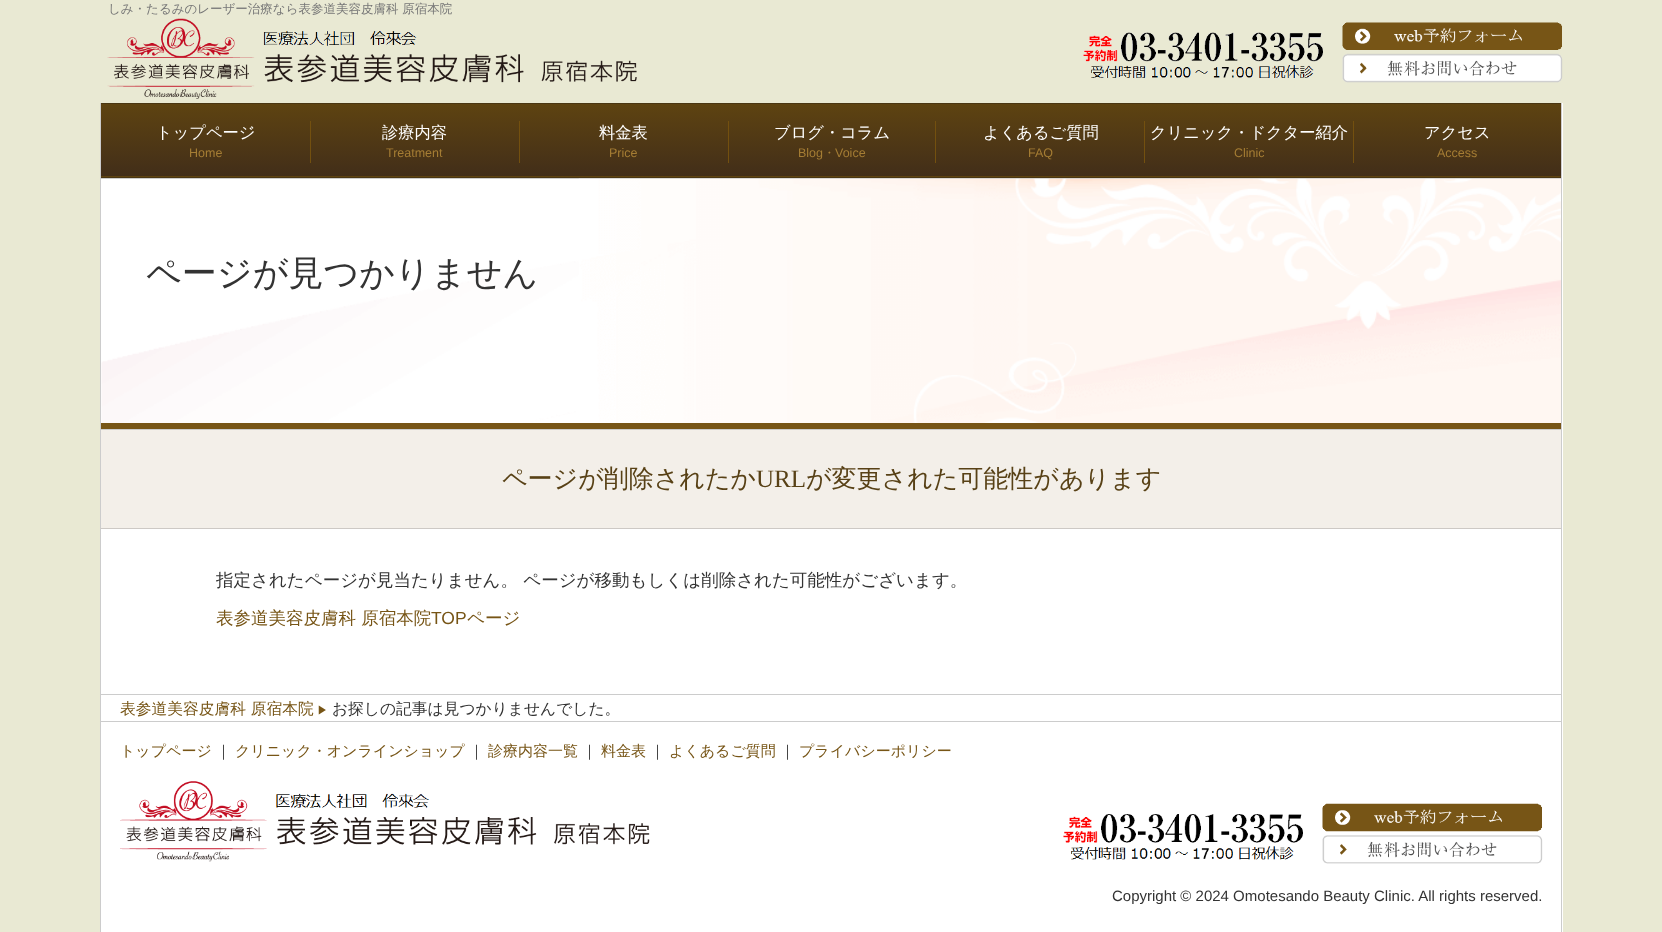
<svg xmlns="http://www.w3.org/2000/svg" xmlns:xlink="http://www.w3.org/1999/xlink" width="1662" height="932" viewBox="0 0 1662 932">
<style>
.cls-1{font:500 12.5px WenQuanYi Zen Hei;fill:#777777}
.cls-2{font:500 16.25px WenQuanYi Zen Hei;fill:#ffffff}
.cls-3{font:12.5px Liberation Sans;fill:#a57d34}
.cls-4{font:500 12.5px WenQuanYi Zen Hei;fill:#a57d34}
.cls-5{font:500 35px WenQuanYi Zen Hei;fill:#333333}
.cls-6{font:500 25px WenQuanYi Zen Hei;fill:#584116}
.cls-7{font:25px Liberation Serif;fill:#584116}
.cls-8{font:500 17.5px WenQuanYi Zen Hei;fill:#333333}
.cls-9{font:500 17.5px WenQuanYi Zen Hei;fill:#775516}
.cls-10{font:17.5px Liberation Sans;fill:#775516}
.cls-11{font:500 15.75px WenQuanYi Zen Hei;fill:#775516}
.cls-12{font:500 11px WenQuanYi Zen Hei;fill:#775516}
.cls-13{font:500 15.75px WenQuanYi Zen Hei;fill:#333333}
.cls-14{font:500 15px WenQuanYi Zen Hei;fill:#775516}
.cls-15{font:500 15px WenQuanYi Zen Hei;fill:#333333}
.cls-16{font:15px Liberation Sans;fill:#333333}
</style>
<defs>
<linearGradient id="g1" gradientUnits="userSpaceOnUse" x1="831" y1="104" x2="831" y2="176"><stop offset="0" stop-color="#5e4311"/><stop offset="1" stop-color="#422e19"/></linearGradient>
<linearGradient id="g2" gradientUnits="userSpaceOnUse" x1="831" y1="176" x2="831" y2="249"><stop offset="0" stop-color="#5e4311"/><stop offset="1" stop-color="#422e19"/></linearGradient>
<clipPath id="clip1"><rect x="101" y="103" width="1460" height="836"/></clipPath>
</defs>
<rect width="100%" height="100%" fill="#e9e9d3"/>
<image xlink:href="image0.png" x="107" y="18" width="530" height="81"/>
<image xlink:href="image1.png" x="1083" y="32" width="240" height="46"/>
<image xlink:href="image2.png" x="1342" y="22" width="220" height="28"/>
<image xlink:href="image3.png" x="1342" y="53" width="221" height="30"/>
<rect fill="#ffffff" x="101" y="103" width="1462" height="829"/>
<rect fill="#cccccc" x="1561" y="103" width="1" height="829"/>
<rect fill="#cccccc" x="100" y="103" width="1" height="829"/>
<rect fill="url(#g1)" x="101" y="104" width="1460" height="72"/>
<rect fill="url(#g2)" x="101" y="176" width="1460" height="1"/>
<g clip-path="url(#clip1)">
<rect fill="none" stroke="#4a3612" x="100.5" y="103.5" width="1462" height="74"/>
</g>
<rect fill="#73500f" x="310" y="121" width="1" height="42"/>
<rect fill="#73500f" x="519" y="121" width="1" height="42"/>
<rect fill="#73500f" x="728" y="121" width="1" height="42"/>
<rect fill="#73500f" x="935" y="121" width="1" height="42"/>
<rect fill="#73500f" x="1144" y="121" width="1" height="42"/>
<rect fill="#73500f" x="1353" y="121" width="1" height="42"/>
<rect fill="#cccccc" x="101" y="178" width="1460" height="1"/>
<image xlink:href="image4.png" x="101" y="178" width="1460" height="245"/>
<rect fill="#775516" x="101" y="423" width="1460" height="6"/>
<rect fill="#cccccc" x="101" y="429" width="1460" height="1"/>
<rect fill="#f3efe9" x="101" y="430" width="1460" height="98"/>
<rect fill="#cdc9c5" x="101" y="528" width="1460" height="1"/>
<rect fill="#cccccc" x="101" y="694" width="1460" height="1"/>
<rect fill="#cccccc" x="101" y="721" width="1460" height="1"/>
<image xlink:href="image5.png" x="120" y="781" width="530" height="81"/>
<image xlink:href="image6.png" x="1063" y="814" width="240" height="46"/>
<image xlink:href="image7.png" x="1322" y="803" width="220" height="29"/>
<image xlink:href="image8.png" x="1322" y="835" width="221" height="29"/>
<text class="cls-1" x="108" y="13">しみ・たるみのレーザー治療なら表参道美容皮膚科 原宿本院</text>
<text class="cls-2" x="156" y="138">トップページ</text>
<text class="cls-3" x="189" y="157">Home</text>
<text class="cls-2" x="382" y="138">診療内容</text>
<text class="cls-3" x="386" y="157">Treatment</text>
<text class="cls-2" x="599" y="138">料金表</text>
<text class="cls-3" x="609" y="157">Price</text>
<text class="cls-2" x="774" y="138">ブログ・コラム</text>
<text class="cls-3" x="798" y="157">Blog</text>
<text class="cls-4" x="823" y="157">・</text>
<text class="cls-3" x="835" y="157">Voice</text>
<text class="cls-2" x="983" y="138">よくあるご質問</text>
<text class="cls-3" x="1028" y="157">FAQ</text>
<text class="cls-2" x="1150" y="138">クリニック・ドクター紹介</text>
<text class="cls-3" x="1234" y="157">Clinic</text>
<text class="cls-2" x="1424" y="138">アクセス</text>
<text class="cls-3" x="1437" y="157">Access</text>
<text class="cls-5" x="146" y="285">ページが見つかりません</text>
<text class="cls-6" x="502" y="487">ページが削除されたか</text>
<text class="cls-7" x="756" y="487">URL</text>
<text class="cls-6" x="806" y="487">が変更された可能性があります</text>
<text class="cls-8" x="216" y="586">指定されたページが見当たりません。 ページが移動もしくは削除された可能性がございます。</text>
<text class="cls-9" x="216" y="624">表参道美容皮膚科 原宿本院</text>
<text class="cls-10" x="431" y="624">TOP</text>
<text class="cls-9" x="467" y="624">ページ</text>
<text class="cls-11" x="120" y="714">表参道美容皮膚科 原宿本院</text>
<text class="cls-12" x="317" y="714">▶</text>
<text class="cls-13" x="332" y="714">お探しの記事は見つかりませんでした。</text>
<text class="cls-14" x="120" y="756">トップページ</text>
<text class="cls-15" x="216" y="756">｜</text>
<text class="cls-14" x="235" y="756">クリニック・オンラインショップ</text>
<text class="cls-15" x="469" y="756">｜</text>
<text class="cls-14" x="488" y="756">診療内容一覧</text>
<text class="cls-15" x="582" y="756">｜</text>
<text class="cls-14" x="601" y="756">料金表</text>
<text class="cls-15" x="650" y="756">｜</text>
<text class="cls-14" x="669" y="756">よくあるご質問</text>
<text class="cls-15" x="780" y="756">｜</text>
<text class="cls-14" x="799" y="756">プライバシーポリシー</text>
<text class="cls-16" x="1112" y="901">Copyright © 2024 Omotesando Beauty Clinic. All rights reserved.</text>
</svg>
